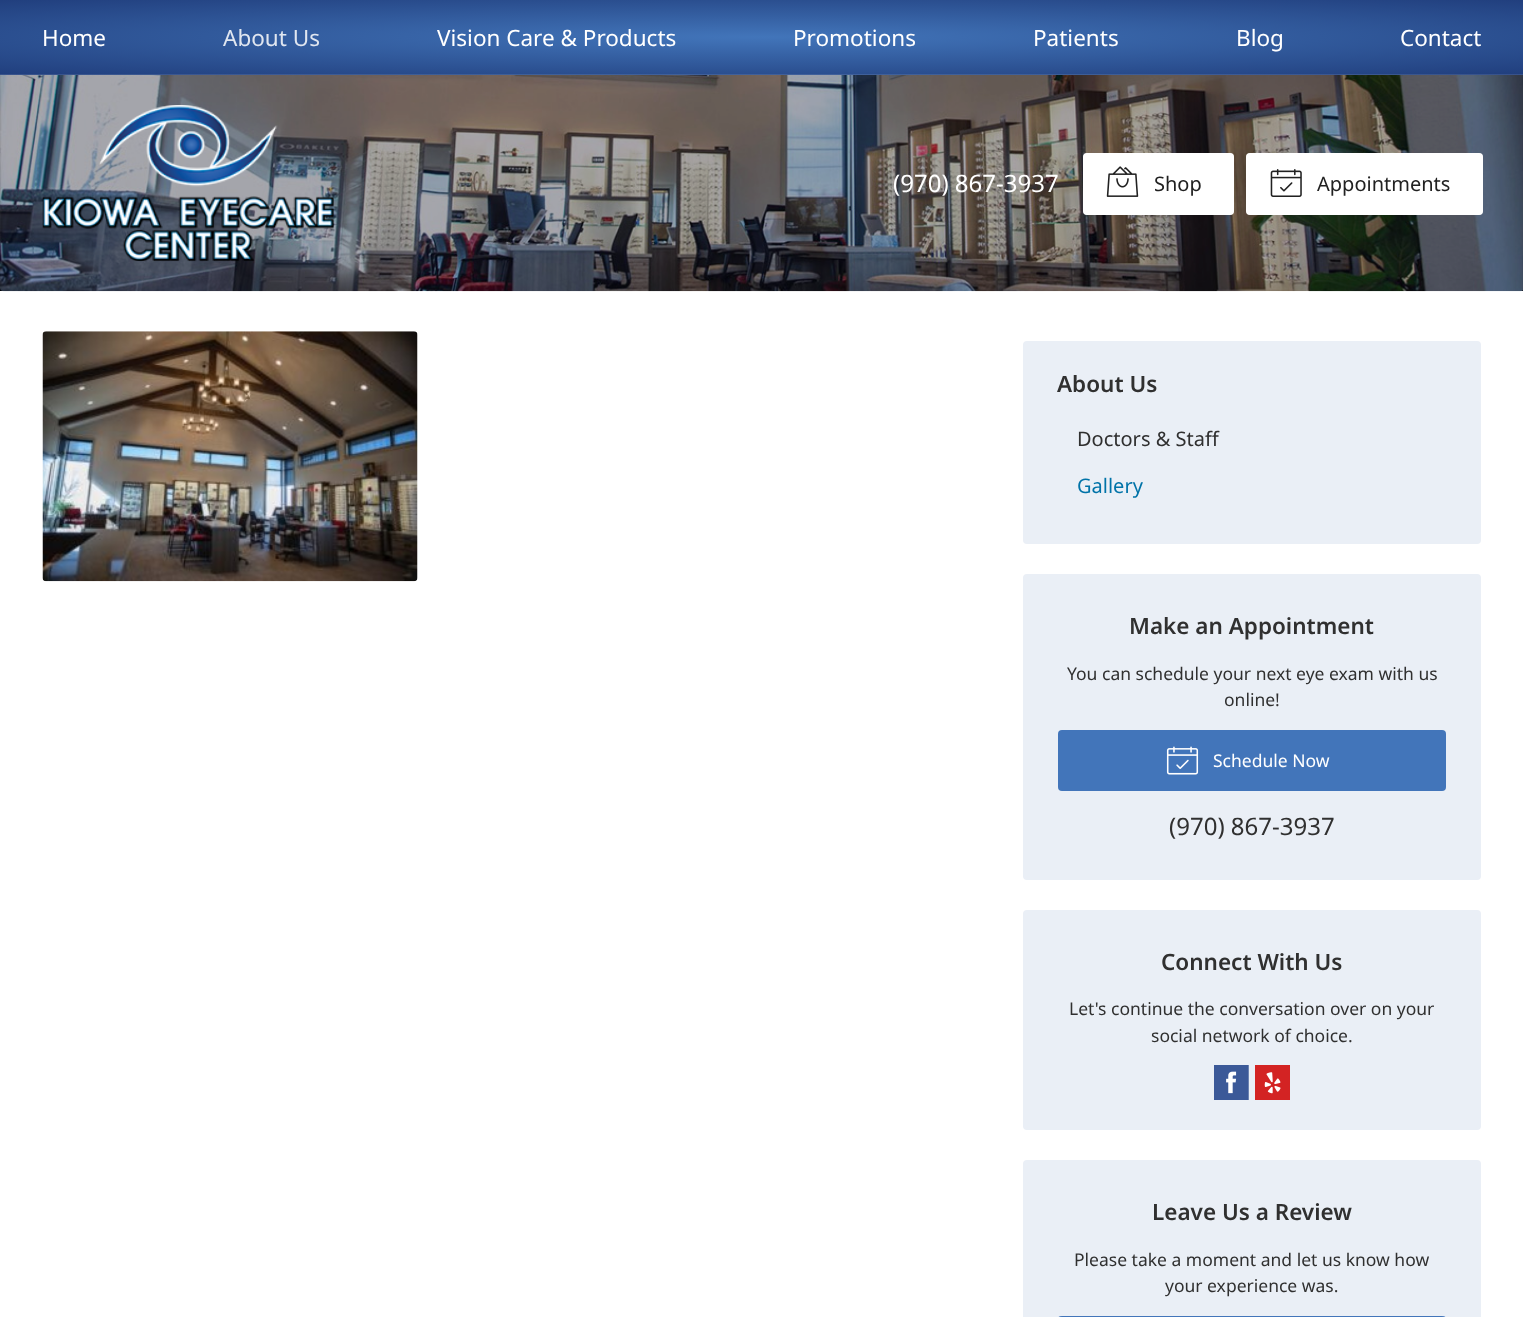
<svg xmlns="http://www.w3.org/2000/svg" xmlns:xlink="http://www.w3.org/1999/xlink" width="1523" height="1317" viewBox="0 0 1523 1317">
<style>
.cls-1{font:22.5px Noto Sans;fill:#ffffff}
.cls-2{font:22.5px Noto Sans;fill:#e0e6f0}
.cls-3{font:24px Noto Sans;fill:#ffffff}
.cls-4{font:20px Noto Sans;fill:#212121}
.cls-5{font:600 22.5px Noto Sans;fill:#303030}
.cls-6{font:20px Noto Sans;fill:#303030}
.cls-7{font:20px Noto Sans;fill:#0073a8}
.cls-8{font:17.5px Noto Sans;fill:#303030}
.cls-9{font:17.5px Noto Sans;fill:#ffffff}
.cls-10{font:24px Noto Sans;fill:#303030}
</style>
<defs>
<radialGradient id="g1" gradientUnits="userSpaceOnUse" cx="0" cy="0" r="1" gradientTransform="matrix(1077 0 0 52 762 37)"><stop offset="0" stop-color="#4275ba"/><stop offset="1" stop-color="#213f7e"/></radialGradient>
<radialGradient id="g2" gradientUnits="userSpaceOnUse" cx="0" cy="0" r="1" gradientTransform="matrix(1077 0 0 52 762 111)"><stop offset="0" stop-color="#4275ba"/><stop offset="1" stop-color="#213f7e"/></radialGradient>
</defs>
<rect width="100%" height="100%" fill="#ffffff"/>
<rect fill="#04050b" x="0" y="75" width="1523" height="216"/>
<rect fill="url(#g1)" x="0" y="0" width="1523" height="74"/>
<rect fill="url(#g2)" x="0" y="74" width="1523" height="1"/>
<rect fill="#ffffff" fill-opacity="0.1" x="0" y="74" width="1523" height="1"/>
<image xlink:href="image0.png" x="0" y="75" width="1523" height="217"/>
<image xlink:href="image1.png" x="42" y="105" width="292" height="157"/>
<rect fill="#ffffff" x="1083" y="153" width="151" height="62" rx="4"/>
<rect fill="none" stroke="#ffffff" stroke-opacity="0.5" x="1083.5" y="153.5" width="150" height="61" rx="3.5"/>
<image xlink:href="image2.png" x="1106" y="166" width="33" height="31"/>
<rect fill="#ffffff" x="1246" y="153" width="237" height="62" rx="4"/>
<rect fill="none" stroke="#ffffff" stroke-opacity="0.5" x="1246.5" y="153.5" width="236" height="61" rx="3.5"/>
<image xlink:href="image3.png" x="1270" y="169" width="32" height="28"/>
<image xlink:href="image4.png" x="42" y="331" width="376" height="251"/>
<rect fill="#eaeff6" x="1023" y="341" width="458" height="203" rx="4"/>
<rect fill="#eaeff6" x="1023" y="574" width="458" height="306" rx="4"/>
<rect fill="#4275ba" x="1058" y="730" width="388" height="61" rx="4"/>
<image xlink:href="image5.png" x="1166" y="746" width="33" height="29"/>
<rect fill="#eaeff6" x="1023" y="910" width="458" height="220" rx="4"/>
<rect fill="#ffffff" x="1226" y="1065" width="23" height="35"/>
<image xlink:href="image6.png" x="1214" y="1065" width="35" height="35"/>
<rect fill="#ffffff" x="1264" y="1072" width="17" height="22"/>
<image xlink:href="image7.png" x="1255" y="1065" width="35" height="35"/>
<rect fill="#eaeff6" x="1023" y="1160" width="458" height="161" rx="4"/>
<rect fill="#4275ba" x="1058" y="1316" width="388" height="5" rx="4"/>
<text class="cls-1" x="42" y="46">Home</text>
<text class="cls-2" x="223" y="46">About Us</text>
<text class="cls-1" x="437" y="46">Vision Care &amp; Products</text>
<text class="cls-1" x="793" y="46">Promotions</text>
<text class="cls-1" x="1033" y="46">Patients</text>
<text class="cls-1" x="1236" y="46">Blog</text>
<text class="cls-1" x="1400" y="46">Contact</text>
<text class="cls-3" x="893" y="192">(970) 867-3937</text>
<text class="cls-4" x="1154" y="191">Shop</text>
<text class="cls-4" x="1317" y="191">Appointments</text>
<text class="cls-5" x="1057" y="392">About Us</text>
<text class="cls-6" x="1077" y="446">Doctors &amp; Staff</text>
<text class="cls-7" x="1077" y="493">Gallery</text>
<text class="cls-5" x="1129" y="634">Make an Appointment</text>
<text class="cls-8" x="1067" y="680">You can schedule your next eye exam with us</text>
<text class="cls-8" x="1224" y="706">online!</text>
<text class="cls-9" x="1213" y="767">Schedule Now</text>
<text class="cls-10" x="1169" y="835">(970) 867-3937</text>
<text class="cls-5" x="1161" y="970">Connect With Us</text>
<text class="cls-8" x="1069" y="1015">Let's continue the conversation over on your</text>
<text class="cls-8" x="1151" y="1042">social network of choice.</text>
<text class="cls-5" x="1152" y="1220">Leave Us a Review</text>
<text class="cls-8" x="1074" y="1266">Please take a moment and let us know how</text>
<text class="cls-8" x="1165" y="1292">your experience was.</text>
</svg>
